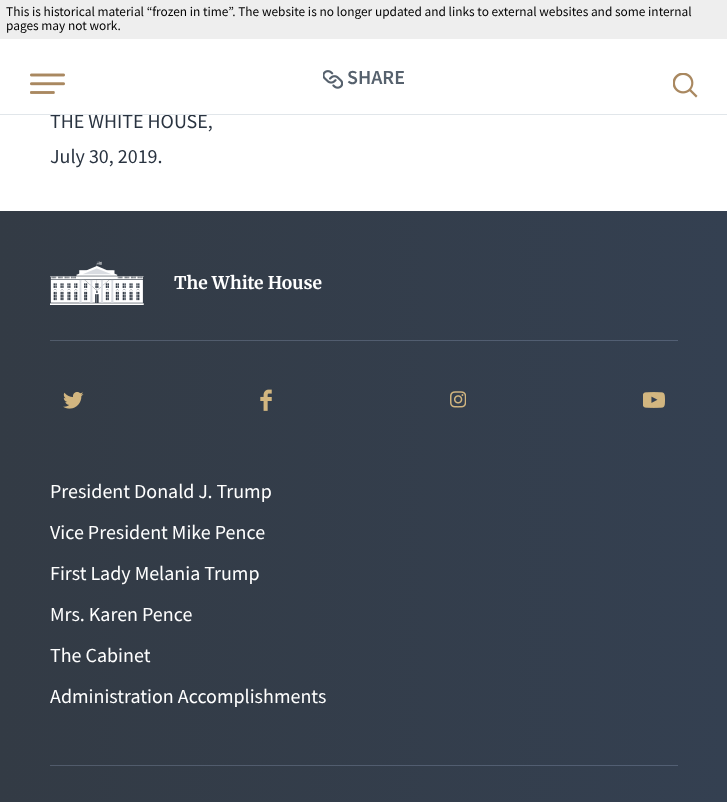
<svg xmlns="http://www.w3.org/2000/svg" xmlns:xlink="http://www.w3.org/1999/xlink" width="727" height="802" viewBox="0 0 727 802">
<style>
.cls-1{font:13.33px Source Sans Pro;fill:#000000}
.cls-2{font:600 20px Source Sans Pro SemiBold;fill:#56616d}
.cls-3{font:20px Source Sans Pro;fill:#293340}
.cls-4{font:bold 17.5px Merriweather;fill:#ffffff}
.cls-5{font:20px Source Sans Pro;fill:#ffffff}
</style>
<defs>
<linearGradient id="g1" gradientUnits="userSpaceOnUse" x1="0" y1="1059" x2="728" y2="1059"><stop offset="0" stop-color="#333b45"/><stop offset="1" stop-color="#344051"/></linearGradient>
<linearGradient id="g2" gradientUnits="userSpaceOnUse" x1="0" y1="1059" x2="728" y2="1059"><stop offset="0" stop-color="#515b6a"/><stop offset="1" stop-color="#525f74"/></linearGradient>
</defs>
<rect width="100%" height="100%" fill="#ffffff"/>
<rect fill="#eeeeee" x="0" y="0" width="727" height="39"/>
<image xlink:href="image0.png" x="30" y="73" width="35" height="21"/>
<image xlink:href="image1.png" x="323" y="70" width="20" height="19"/>
<image xlink:href="image2.png" x="673" y="73" width="25" height="25"/>
<rect fill="url(#g1)" x="0" y="211" width="727" height="591"/>
<rect fill="url(#g2)" x="50" y="340" width="628" height="1"/>
<rect fill="url(#g2)" x="50" y="765" width="628" height="1"/>
<image xlink:href="image3.png" x="50" y="261" width="94" height="44"/>
<image xlink:href="image4.png" x="63" y="391" width="21" height="18"/>
<image xlink:href="image5.png" x="260" y="389" width="12" height="22"/>
<image xlink:href="image6.png" x="450" y="391" width="16" height="17"/>
<image xlink:href="image7.png" x="643" y="392" width="22" height="16"/>
<text class="cls-1"><tspan x="6" y="16">This is historical material “frozen in time”. The website is no longer updated and links to external websites and some internal</tspan><tspan x="6" y="30">pages may not work.</tspan></text>
<text class="cls-2" x="347" y="84">SHARE</text>
<text class="cls-3" x="50" y="128">THE WHITE HOUSE,</text>
<rect fill="#e1e6ea" x="0" y="114" width="727" height="1"/>
<text class="cls-3" x="50" y="163">July 30, 2019.</text>
<text class="cls-4" x="174" y="289">The White House</text>
<text class="cls-5" x="50" y="498">President Donald J. Trump</text>
<text class="cls-5" x="50" y="539">Vice President Mike Pence</text>
<text class="cls-5" x="50" y="580">First Lady Melania Trump</text>
<text class="cls-5" x="50" y="621">Mrs. Karen Pence</text>
<text class="cls-5" x="50" y="662">The Cabinet</text>
<text class="cls-5" x="50" y="703">Administration Accomplishments</text>
</svg>
